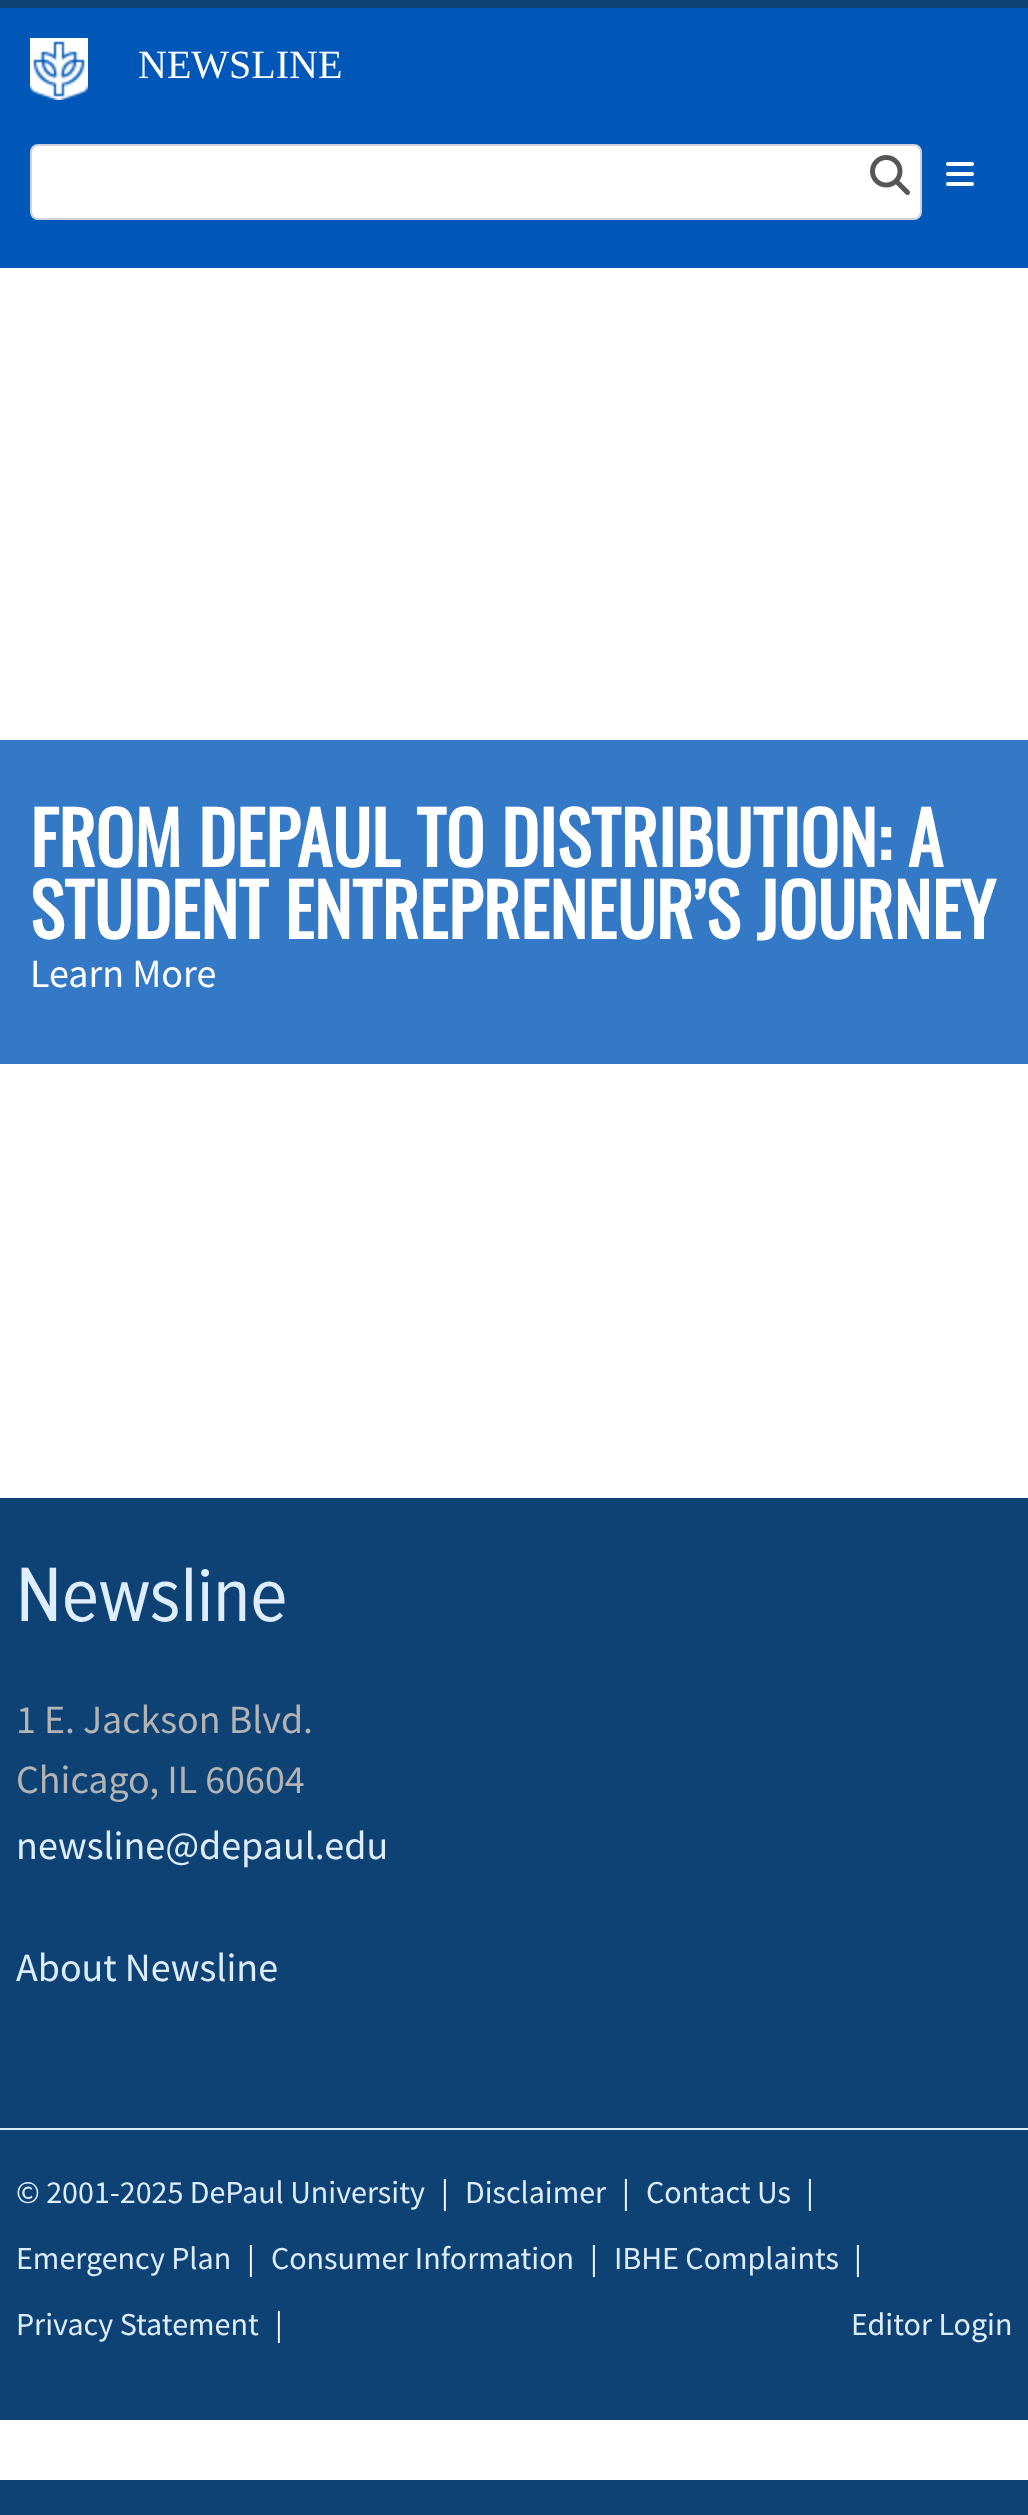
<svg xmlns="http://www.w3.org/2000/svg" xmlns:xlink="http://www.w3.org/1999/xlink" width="1028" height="2515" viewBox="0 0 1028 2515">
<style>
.cls-1{font:40px Liberation Serif;fill:#ffffff}
.cls-2{font:bold 72px Oswald;fill:#ffffff}
.cls-3{font:40px Source Sans Pro;fill:#ffffff}
.cls-4{font:80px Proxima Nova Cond;fill:#deeeff}
.cls-5{font:40px Source Sans Pro;fill:#b3b3b3}
.cls-6{font:40px Source Sans Pro;fill:#deeeff}
.cls-7{font:32px Source Sans Pro;fill:#deeeff}
.cls-8{font:32px Source Sans Pro;fill:#ffffff}
</style>
<rect width="100%" height="100%" fill="#0e4174"/>
<rect fill="#ffffff" x="0" y="268" width="1028" height="2212"/>
<rect fill="#0057b7" x="0" y="8" width="1028" height="260"/>
<image xlink:href="image0.png" x="30" y="38" width="58" height="62"/>
<rect fill="#ffffff" stroke="#ced4da" stroke-width="2" x="31" y="145" width="890" height="74" rx="7"/>
<image xlink:href="image1.png" x="870" y="155" width="40" height="40"/>
<image xlink:href="image2.png" x="946" y="162" width="28" height="24"/>
<rect fill="#3379c6" x="0" y="740" width="1028" height="324"/>
<rect fill="#0e4174" x="0" y="1498" width="1028" height="922"/>
<rect fill="#deeeff" x="0" y="2128" width="1028" height="2"/>
<text class="cls-1" x="138" y="78">NEWSLINE</text>
<text class="cls-2"><tspan x="30" y="867">FROM DEPAUL TO DISTRIBUTION: A</tspan><tspan x="30" y="939">STUDENT ENTREPRENEUR’S JOURNEY</tspan></text>
<text class="cls-3" x="30" y="987">Learn More</text>
<text class="cls-4" x="16" y="1621">Newsline</text>
<text class="cls-5"><tspan x="16" y="1733">1 E. Jackson Blvd.</tspan><tspan x="16" y="1793">Chicago, IL 60604</tspan></text>
<text class="cls-6" x="16" y="1859">newsline@depaul.edu</text>
<text class="cls-6" x="16" y="1981">About Newsline</text>
<text class="cls-7" x="16" y="2203">© 2001-2025 DePaul University</text>
<text class="cls-8" x="441" y="2203">|</text>
<text class="cls-7" x="465" y="2203">Disclaimer</text>
<text class="cls-8" x="622" y="2203">|</text>
<text class="cls-7" x="646" y="2203">Contact Us</text>
<text class="cls-8" x="806" y="2203">|</text>
<text class="cls-7" x="16" y="2269">Emergency Plan</text>
<text class="cls-8" x="247" y="2269">|</text>
<text class="cls-7" x="271" y="2269">Consumer Information</text>
<text class="cls-8" x="590" y="2269">|</text>
<text class="cls-7" x="614" y="2269">IBHE Complaints</text>
<text class="cls-8" x="854" y="2269">|</text>
<text class="cls-7" x="16" y="2335">Privacy Statement</text>
<text class="cls-8" x="275" y="2335">|</text>
<text class="cls-7" x="851" y="2335">Editor Login</text>
</svg>
